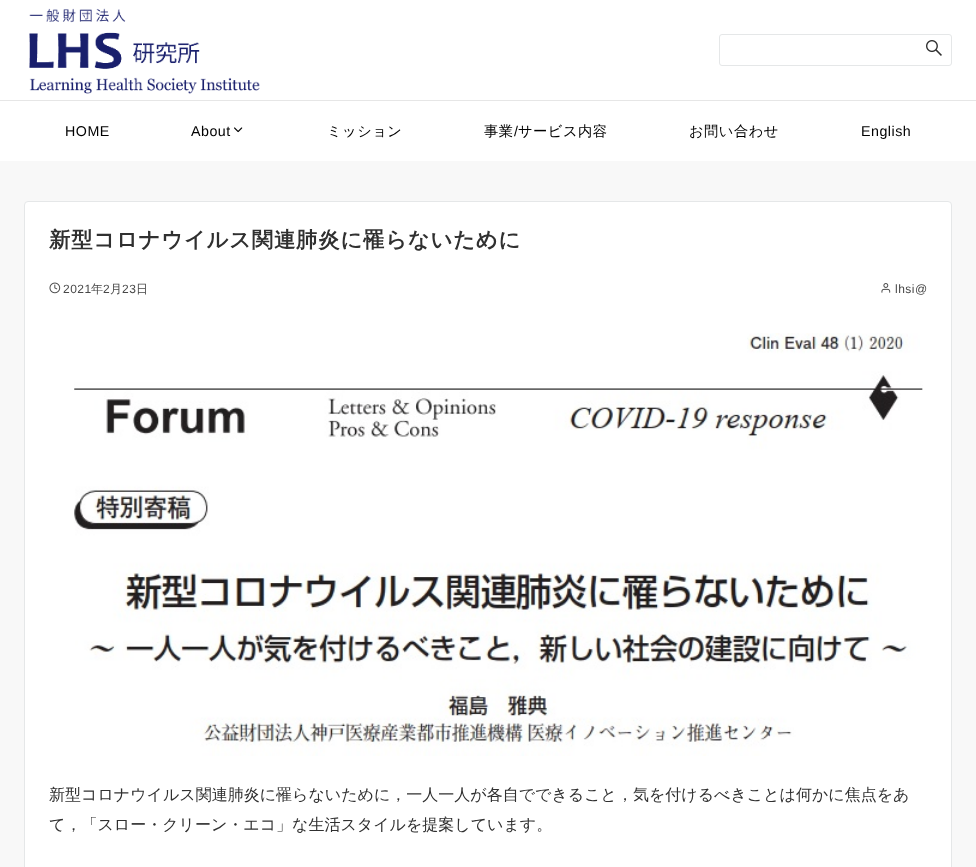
<svg xmlns="http://www.w3.org/2000/svg" xmlns:xlink="http://www.w3.org/1999/xlink" width="976" height="867" viewBox="0 0 976 867">
<style>
.cls-1{font:14.25px Liberation Sans;letter-spacing:0.5px;fill:#000000}
.cls-2{font:500 14.25px WenQuanYi Zen Hei;letter-spacing:0.5px;fill:#000000}
.cls-3{font:bold 21.3px WenQuanYi Zen Hei;letter-spacing:0.85px;fill:#303030}
.cls-4{font:12px Liberation Sans;letter-spacing:0.5px;fill:#484848}
.cls-5{font:500 12px WenQuanYi Zen Hei;letter-spacing:0.5px;fill:#484848}
.cls-6{font:500 16px WenQuanYi Zen Hei;fill:#303030}
</style>
<rect width="100%" height="100%" fill="#f8f8f8"/>
<rect fill="#ffffff" x="0" y="0" width="976" height="100"/>
<rect fill="#e6e6e6" x="0" y="100" width="976" height="1"/>
<image xlink:href="image0.png" x="29" y="8" width="231" height="86"/>
<rect fill="none" stroke="#e5e7e8" x="719.5" y="34.5" width="232" height="31" rx="2.5"/>
<image xlink:href="image1.png" x="926" y="40" width="16" height="16"/>
<rect fill="#ffffff" x="0" y="101" width="976" height="60"/>
<image xlink:href="image2.png" x="234" y="127" width="9" height="6"/>
<rect fill="#ffffff" stroke="#e5e7e8" x="24.5" y="201.5" width="927" height="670" rx="3.5"/>
<image xlink:href="image3.png" x="49" y="282" width="12" height="12"/>
<image xlink:href="image4.png" x="881" y="283" width="10" height="10"/>
<image xlink:href="image5.png" x="74" y="333" width="849" height="423"/>
<text class="cls-1" x="65" y="136">HOME</text>
<text class="cls-1" x="191" y="136">About</text>
<text class="cls-2" x="327" y="136">ミッション</text>
<text class="cls-2" x="484" y="136">事業</text>
<text class="cls-1" x="514" y="136">/</text>
<text class="cls-2" x="518" y="136">サービス内容</text>
<text class="cls-2" x="689" y="136">お問い合わせ</text>
<text class="cls-1" x="861" y="136">English</text>
<text class="cls-3" x="49" y="247">新型コロナウイルス関連肺炎に罹らないために</text>
<text class="cls-4" x="63" y="293">2021</text>
<text class="cls-5" x="91" y="293">年</text>
<text class="cls-4" x="103" y="293">2</text>
<text class="cls-5" x="110" y="293">月</text>
<text class="cls-4" x="122" y="293">23</text>
<text class="cls-5" x="136" y="293">日</text>
<text class="cls-4" x="895" y="293">lhsi@</text>
<text class="cls-6"><tspan x="49" y="800">新型コロナウイルス関連肺炎に罹らないために，一人一人が各自でできること，気を付けるべきことは何かに焦点をあ</tspan><tspan x="49" y="830">て，「スロー・クリーン・エコ」な生活スタイルを提案しています。</tspan></text>
</svg>
